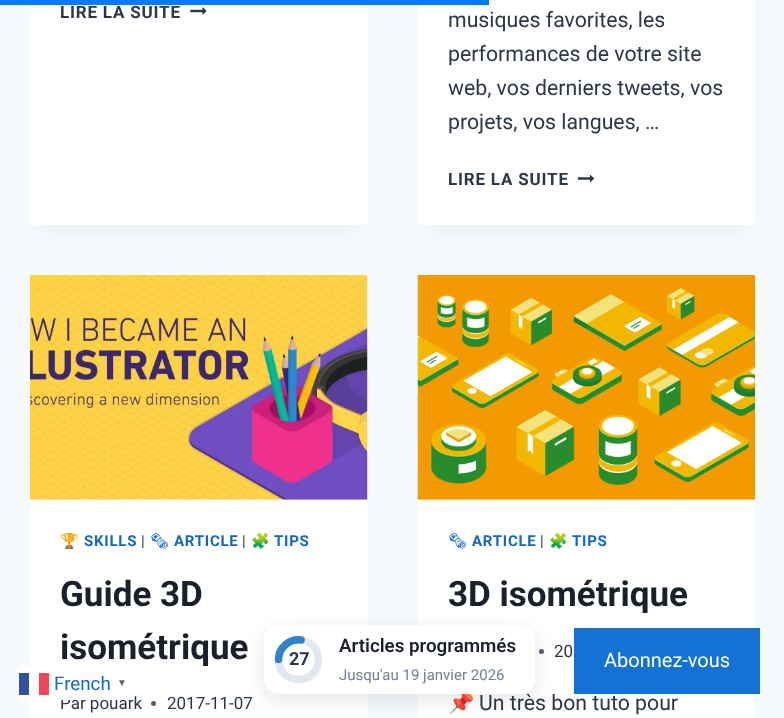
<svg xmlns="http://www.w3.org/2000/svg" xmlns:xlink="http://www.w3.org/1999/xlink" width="784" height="718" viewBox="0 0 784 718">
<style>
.cls-1{font:bold 17px Roboto;letter-spacing:0.8px;fill:#2d3748}
.cls-2{font:21.25px Roboto;fill:#2d3748}
.cls-3{font:bold 15px Noto Color Emoji;letter-spacing:0.75px;fill:#1268c2}
.cls-4{font:bold 15px Roboto;letter-spacing:0.75px;fill:#1268c2}
.cls-5{font:15px Roboto;letter-spacing:0.75px;fill:#2d3748}
.cls-6{font:bold 15px Noto Emoji;letter-spacing:0.75px;fill:#1268c2}
.cls-7{font:bold 35px Roboto;fill:#1a202c}
.cls-8{font:17px Roboto;fill:#2d3748}
.cls-9{font:21.25px Noto Color Emoji;fill:#2d3748}
.cls-10{font:bold 18px Roboto;fill:#2d3748}
.cls-11{font:600 18.75px Roboto;fill:#1a202c}
.cls-12{font:15px Roboto;fill:#718096}
.cls-13{font:20px Roboto;fill:#ffffff}
.cls-14{font:18.75px Roboto;fill:#1268c2}
.cls-15{font:bold 10px Liberation Sans;fill:#666666}
</style>
<defs>
<clipPath id="clip1"><path d="M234 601H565V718H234ZM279 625H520C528.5 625 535 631.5 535 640V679C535 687.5 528.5 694 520 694H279C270.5 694 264 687.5 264 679V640C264 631.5 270.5 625 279 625Z" clip-rule="evenodd"/></clipPath>
</defs>
<rect width="100%" height="100%" fill="#f7fafc"/>
<rect fill="#000000" fill-opacity="0.05" filter="blur(9.5px)" x="43" y="-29" width="312" height="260"/>
<rect fill="#ffffff" x="30" y="-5" width="338" height="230" rx="5"/>
<rect fill="#000000" fill-opacity="0.05" filter="blur(9.5px)" x="430" y="-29" width="313" height="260"/>
<rect fill="#ffffff" x="418" y="-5" width="337" height="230" rx="5"/>
<rect fill="#007bff" x="0" y="0" width="489" height="5"/>
<image xlink:href="image0.png" x="190" y="7" width="16" height="8"/>
<image xlink:href="image1.png" x="578" y="174" width="16" height="9"/>
<rect fill="#ffffff" x="30" y="275" width="338" height="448" rx="5"/>
<image xlink:href="image2.png" x="30" y="274" width="338" height="226"/>
<circle fill="#575f6d" cx="153.5" cy="703.5" r="2.5"/>
<rect fill="#ffffff" x="418" y="499" width="337" height="219"/>
<image xlink:href="image3.png" x="417" y="274" width="338" height="226"/>
<circle fill="#575f6d" cx="541.5" cy="651.5" r="2.5"/>
<g clip-path="url(#clip1)">
<rect fill="#000000" fill-opacity="0.1" filter="blur(9.5px)" x="264" y="631" width="271" height="69" rx="15"/>
</g>
<rect fill="#1472d4" x="574" y="628" width="186" height="66"/>
<text class="cls-1" x="60" y="18">LIRE LA SUITE</text>
<text class="cls-2"><tspan x="448" y="27">musiques favorites, les</tspan><tspan x="448" y="61">performances de votre site</tspan><tspan x="448" y="95">web, vos derniers tweets, vos</tspan><tspan x="448" y="129">projets, vos langues, …</tspan></text>
<text class="cls-1" x="448" y="185">LIRE LA SUITE</text>
<text class="cls-3" x="60" y="546">🏆</text>
<text class="cls-4" x="84" y="546">SKILLS</text>
<text class="cls-5" x="141" y="546">|</text>
<text class="cls-6" x="150" y="546">🗞</text>
<text class="cls-4" x="174" y="546">ARTICLE</text>
<text class="cls-5" x="242" y="546">|</text>
<text class="cls-3" x="251" y="546">🧩</text>
<text class="cls-4" x="274" y="546">TIPS</text>
<text class="cls-7"><tspan x="60" y="606">Guide 3D</tspan><tspan x="60" y="659">isométrique</tspan></text>
<text class="cls-8" x="60" y="709">Par pouark</text>
<text class="cls-8" x="167" y="709">2017-11-07</text>
<text class="cls-6" x="448" y="546">🗞</text>
<text class="cls-4" x="472" y="546">ARTICLE</text>
<text class="cls-5" x="540" y="546">|</text>
<text class="cls-3" x="549" y="546">🧩</text>
<text class="cls-4" x="572" y="546">TIPS</text>
<text class="cls-7" x="448" y="606">3D isométrique</text>
<text class="cls-8" x="554" y="657">20</text>
<text class="cls-9" x="448" y="710">📌</text>
<text class="cls-2" x="479" y="710">Un très bon tuto pour</text>
<rect fill="#ffffff" fill-opacity="0.9" x="264" y="625" width="271" height="69" rx="15"/>
<path fill="none" stroke="#e2e8f0" stroke-width="7.5" d="M278.5 659.5C278.5 633.5 318.5 633.5 318.5 659.5C318.5 686 278.5 686 278.5 659.5Z"/>
<path fill="none" stroke="#3182ce" stroke-width="7.5" stroke-linecap="round" d="M278.5 659.5C278.5 648 289.5 638.5 301 640"/>
<text class="cls-10" x="289" y="665">27</text>
<text class="cls-11" x="339" y="652">Articles programmés</text>
<text class="cls-12" x="339" y="680">Jusqu'au 19 janvier 2026</text>
<text class="cls-13" x="604" y="667">Abonnez-vous</text>
<rect fill="#ffffff" x="19" y="666" width="114" height="34"/>
<text class="cls-14" x="54" y="690">French</text>
<rect fill="#335199" x="19" y="673" width="10" height="22"/>
<rect fill="#f54659" x="39" y="673" width="10" height="22"/>
<text class="cls-15" x="117" y="686">▼</text>
</svg>
